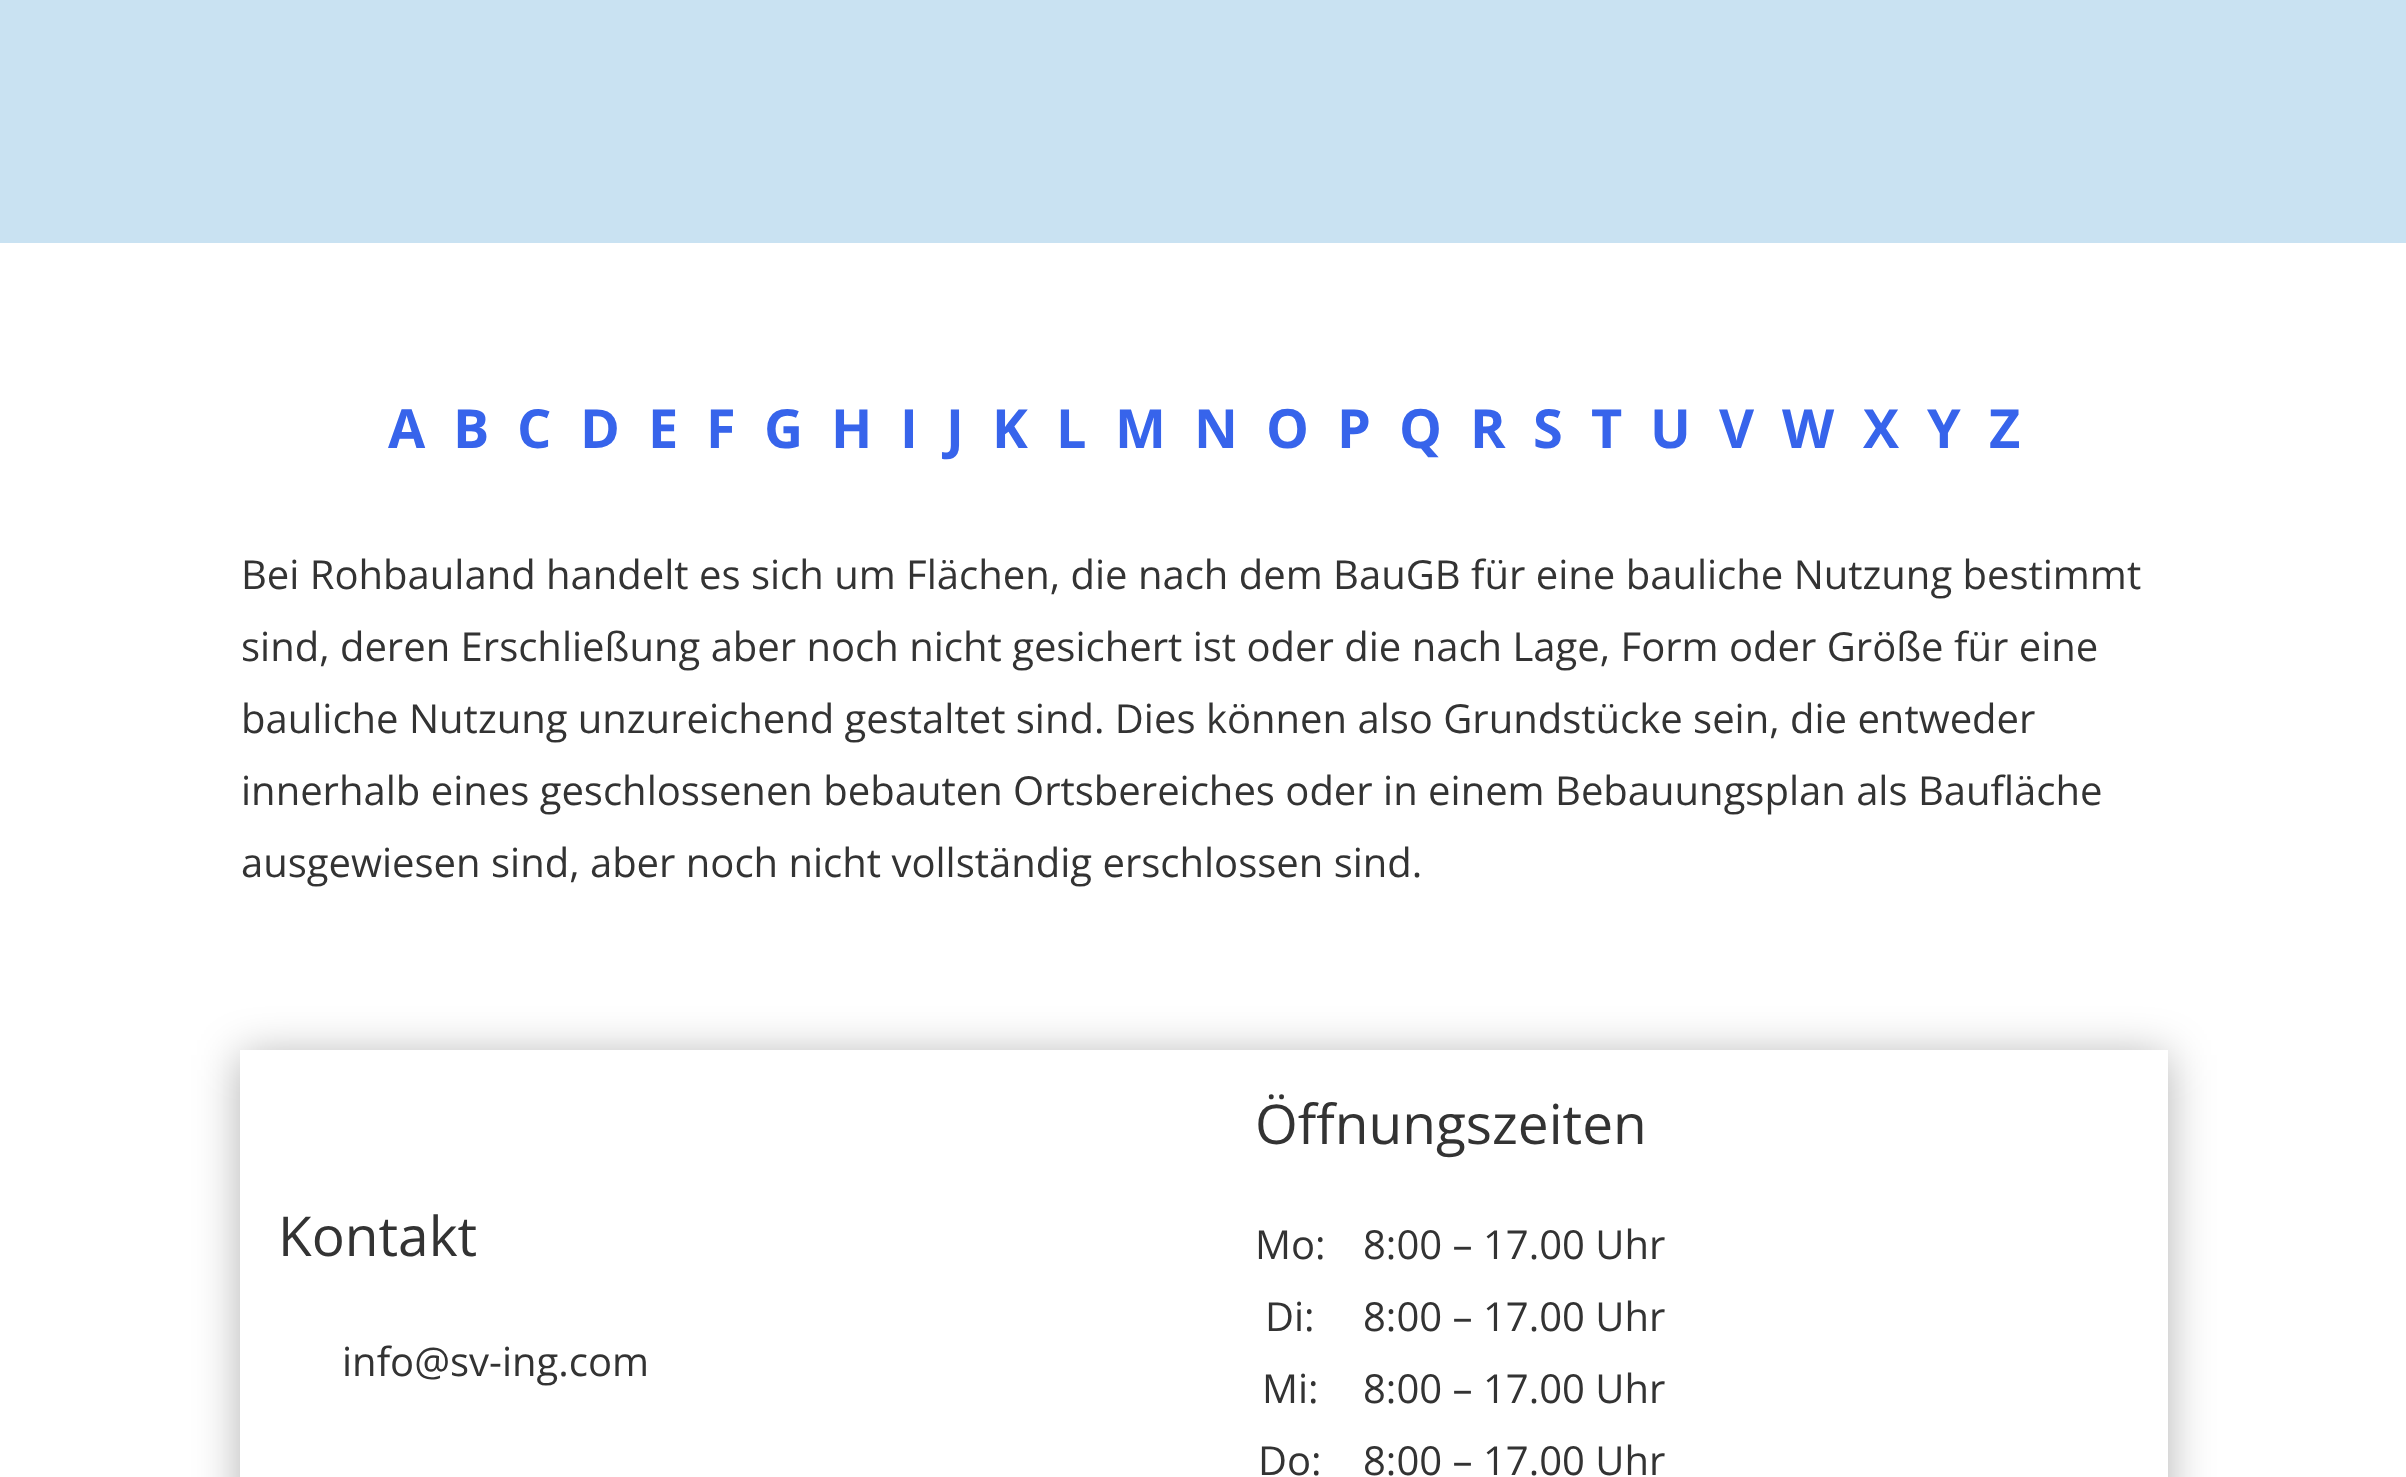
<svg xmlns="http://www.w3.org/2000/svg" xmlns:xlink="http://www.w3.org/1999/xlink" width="2406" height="1477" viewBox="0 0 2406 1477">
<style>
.cls-1{font:bold 54px Open Sans;fill:#3764eb}
.cls-2{font:40px Open Sans;fill:#333333}
.cls-3{font:55px Open Sans;fill:#333333}
</style>
<defs>
<clipPath id="clip1"><path d="M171 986H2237V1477H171ZM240 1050H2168V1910H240Z" clip-rule="evenodd"/></clipPath>
</defs>
<rect width="100%" height="100%" fill="#ffffff"/>
<rect fill="#c9e2f2" x="0" y="0" width="2406" height="243"/>
<g clip-path="url(#clip1)">
<rect fill="#000000" fill-opacity="0.3" filter="blur(22.5px)" x="240" y="1055" width="1928" height="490"/>
</g>
<text class="cls-1" x="388" y="448">A</text>
<text class="cls-1" x="453" y="448">B</text>
<text class="cls-1" x="517" y="448">C</text>
<text class="cls-1" x="580" y="448">D</text>
<text class="cls-1" x="648" y="448">E</text>
<text class="cls-1" x="706" y="448">F</text>
<text class="cls-1" x="764" y="448">G</text>
<text class="cls-1" x="831" y="448">H</text>
<text class="cls-1" x="900" y="448">I</text>
<text class="cls-1" x="946" y="448">J</text>
<text class="cls-1" x="992" y="448">K</text>
<text class="cls-1" x="1056" y="448">L</text>
<text class="cls-1" x="1115" y="448">M</text>
<text class="cls-1" x="1194" y="448">N</text>
<text class="cls-1" x="1266" y="448">O</text>
<text class="cls-1" x="1337" y="448">P</text>
<text class="cls-1" x="1399" y="448">Q</text>
<text class="cls-1" x="1470" y="448">R</text>
<text class="cls-1" x="1533" y="448">S</text>
<text class="cls-1" x="1591" y="448">T</text>
<text class="cls-1" x="1650" y="448">U</text>
<text class="cls-1" x="1719" y="448">V</text>
<text class="cls-1" x="1782" y="448">W</text>
<text class="cls-1" x="1863" y="448">X</text>
<text class="cls-1" x="1927" y="448">Y</text>
<text class="cls-1" x="1989" y="448">Z</text>
<text class="cls-2"><tspan x="241" y="589">Bei Rohbauland handelt es sich um Flächen, die nach dem BauGB für eine bauliche Nutzung bestimmt</tspan><tspan x="241" y="661">sind, deren Erschließung aber noch nicht gesichert ist oder die nach Lage, Form oder Größe für eine</tspan><tspan x="241" y="733">bauliche Nutzung unzureichend gestaltet sind. Dies können also Grundstücke sein, die entweder</tspan><tspan x="241" y="805">innerhalb eines geschlossenen bebauten Ortsbereiches oder in einem Bebauungsplan als Baufläche</tspan><tspan x="241" y="877">ausgewiesen sind, aber noch nicht vollständig erschlossen sind.</tspan></text>
<text class="cls-3" x="278" y="1256">Kontakt</text>
<text class="cls-2" x="342" y="1376">info@sv-ing.com</text>
<text class="cls-3" x="1255" y="1144">Öffnungszeiten</text>
<text class="cls-2" x="1255" y="1259">Mo:</text>
<text class="cls-2" x="1363" y="1259">8:00 – 17.00 Uhr</text>
<text class="cls-2" x="1265" y="1331">Di:</text>
<text class="cls-2" x="1363" y="1331">8:00 – 17.00 Uhr</text>
<text class="cls-2" x="1262" y="1403">Mi:</text>
<text class="cls-2" x="1363" y="1403">8:00 – 17.00 Uhr</text>
<text class="cls-2" x="1258" y="1475">Do:</text>
<text class="cls-2" x="1363" y="1475">8:00 – 17.00 Uhr</text>
</svg>
